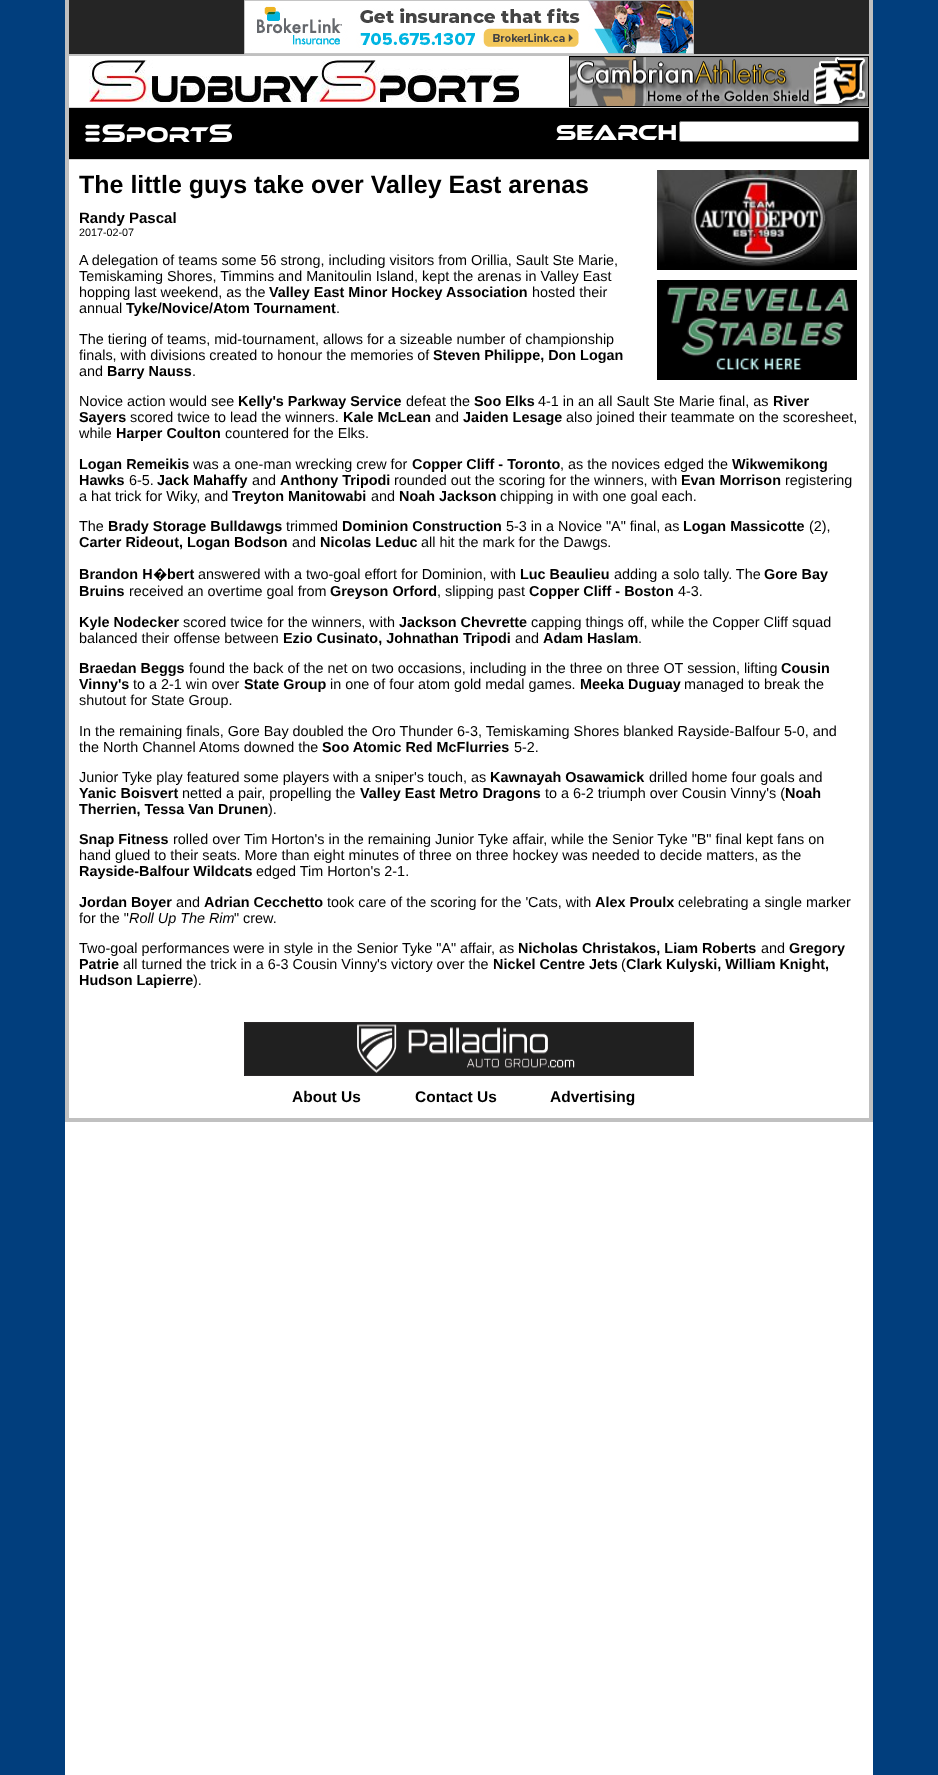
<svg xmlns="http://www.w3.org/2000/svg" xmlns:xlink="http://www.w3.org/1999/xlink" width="938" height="1775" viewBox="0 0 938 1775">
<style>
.cls-1{font:bold 25px Liberation Sans;fill:#000000}
.cls-2{font:bold 15px Liberation Sans;fill:#000000}
.cls-3{font:10.75px Liberation Sans;fill:#000000}
.cls-4{font:14.4px Liberation Sans;fill:#000000}
.cls-5{font:bold 14.4px Liberation Sans;fill:#000000}
.cls-6{font:bold 14.4px Noto Sans;fill:#000000}
.cls-7{font:italic 14.4px Liberation Sans;fill:#000000}
.cls-8{font:bold 15.5px Liberation Sans;fill:#000000}
</style>
<rect width="100%" height="100%" fill="#ffffff"/>
<rect fill="#013e7d" x="0" y="0" width="65" height="1775"/>
<rect fill="#c0c0c0" x="869" y="0" width="4" height="1122"/>
<rect fill="#c0c0c0" x="65" y="1118" width="808" height="4"/>
<rect fill="#c0c0c0" x="65" y="0" width="4" height="1122"/>
<rect fill="#252525" x="69" y="0" width="800" height="54"/>
<rect fill="#c0c0c0" x="69" y="54" width="800" height="2"/>
<image xlink:href="image0.png" x="244" y="0" width="450" height="54"/>
<rect fill="#d3d3d3" x="69" y="107" width="800" height="1"/>
<image xlink:href="image1.png" x="89" y="60" width="430" height="42"/>
<image xlink:href="image2.png" x="569" y="56" width="300" height="51"/>
<rect fill="#000000" x="69" y="108" width="800" height="51"/>
<rect fill="#d3d3d3" x="69" y="159" width="800" height="1"/>
<image xlink:href="image3.png" x="85" y="124" width="147" height="19"/>
<image xlink:href="image4.png" x="556" y="124" width="120" height="16"/>
<rect fill="#ffffff" stroke="#767676" x="679.5" y="121.5" width="179" height="20" rx="1.5"/>
<image xlink:href="image5.png" x="657" y="170" width="200" height="100"/>
<image xlink:href="image6.png" x="657" y="280" width="200" height="100"/>
<image xlink:href="image7.png" x="244" y="1022" width="450" height="54"/>
<rect fill="#013e7d" x="873" y="0" width="65" height="1775"/>
<text class="cls-1" x="79" y="193">The little guys take over Valley East arenas</text>
<text class="cls-2" x="79" y="223">Randy Pascal</text>
<text class="cls-3" x="79" y="236">2017-02-07</text>
<text class="cls-4"><tspan x="79" y="265">A delegation of teams some 56 strong, including visitors from Orillia, Sault Ste Marie,</tspan><tspan x="79" y="281">Temiskaming Shores, Timmins and Manitoulin Island, kept the arenas in Valley East</tspan><tspan x="79" y="297">hopping last weekend, as the</tspan></text>
<text class="cls-5" x="269" y="297">Valley East Minor Hockey Association</text>
<text class="cls-4" x="532" y="297">hosted their</text>
<text class="cls-4" x="79" y="313">annual</text>
<text class="cls-5" x="126" y="313">Tyke/Novice/Atom Tournament</text>
<text class="cls-4" x="336" y="313">.</text>
<text class="cls-4"><tspan x="79" y="344">The tiering of teams, mid-tournament, allows for a sizeable number of championship</tspan><tspan x="79" y="360">finals, with divisions created to honour the memories of</tspan></text>
<text class="cls-5" x="433" y="360">Steven Philippe, Don Logan</text>
<text class="cls-4" x="79" y="376">and</text>
<text class="cls-5" x="107" y="376">Barry Nauss</text>
<text class="cls-4" x="192" y="376">.</text>
<text class="cls-4" x="79" y="406">Novice action would see</text>
<text class="cls-5" x="238" y="406">Kelly's Parkway Service</text>
<text class="cls-4" x="406" y="406">defeat the</text>
<text class="cls-5" x="474" y="406">Soo Elks</text>
<text class="cls-4" x="538" y="406">4-1 in an all Sault Ste Marie final, as</text>
<text class="cls-5" x="773" y="406">River</text>
<text class="cls-5" x="79" y="422">Sayers</text>
<text class="cls-4" x="130" y="422">scored twice to lead the winners.</text>
<text class="cls-5" x="343" y="422">Kale McLean</text>
<text class="cls-4" x="435" y="422">and</text>
<text class="cls-5" x="463" y="422">Jaiden Lesage</text>
<text class="cls-4" x="566" y="422">also joined their teammate on the scoresheet,</text>
<text class="cls-4" x="79" y="438">while</text>
<text class="cls-5" x="116" y="438">Harper Coulton</text>
<text class="cls-4" x="225" y="438">countered for the Elks.</text>
<text class="cls-5" x="79" y="469">Logan Remeikis</text>
<text class="cls-4" x="193" y="469">was a one-man wrecking crew for</text>
<text class="cls-5" x="412" y="469">Copper Cliff - Toronto</text>
<text class="cls-4" x="560" y="469">, as the novices edged the</text>
<text class="cls-5" x="732" y="469">Wikwemikong</text>
<text class="cls-5" x="79" y="485">Hawks</text>
<text class="cls-4" x="129" y="485">6-5.</text>
<text class="cls-5" x="157" y="485">Jack Mahaffy</text>
<text class="cls-4" x="252" y="485">and</text>
<text class="cls-5" x="280" y="485">Anthony Tripodi</text>
<text class="cls-4" x="394" y="485">rounded out the scoring for the winners, with</text>
<text class="cls-5" x="681" y="485">Evan Morrison</text>
<text class="cls-4" x="785" y="485">registering</text>
<text class="cls-4" x="79" y="501">a hat trick for Wiky, and</text>
<text class="cls-5" x="232" y="501">Treyton Manitowabi</text>
<text class="cls-4" x="371" y="501">and</text>
<text class="cls-5" x="399" y="501">Noah Jackson</text>
<text class="cls-4" x="500" y="501">chipping in with one goal each.</text>
<text class="cls-4" x="79" y="531">The</text>
<text class="cls-5" x="108" y="531">Brady Storage Bulldawgs</text>
<text class="cls-4" x="286" y="531">trimmed</text>
<text class="cls-5" x="342" y="531">Dominion Construction</text>
<text class="cls-4" x="506" y="531">5-3 in a Novice "A" final, as</text>
<text class="cls-5" x="683" y="531">Logan Massicotte</text>
<text class="cls-4" x="809" y="531">(2),</text>
<text class="cls-5" x="79" y="547">Carter Rideout, Logan Bodson</text>
<text class="cls-4" x="292" y="547">and</text>
<text class="cls-5" x="320" y="547">Nicolas Leduc</text>
<text class="cls-4" x="421" y="547">all hit the mark for the Dawgs.</text>
<text class="cls-5" x="79" y="579">Brandon H</text>
<text class="cls-6" x="153" y="579">�</text>
<text class="cls-5" x="167" y="579">bert</text>
<text class="cls-4" x="198" y="579">answered with a two-goal effort for Dominion, with</text>
<text class="cls-5" x="520" y="579">Luc Beaulieu</text>
<text class="cls-4" x="614" y="579">adding a solo tally. The</text>
<text class="cls-5" x="764" y="579">Gore Bay</text>
<text class="cls-5" x="79" y="596">Bruins</text>
<text class="cls-4" x="129" y="596">received an overtime goal from</text>
<text class="cls-5" x="330" y="596">Greyson Orford</text>
<text class="cls-4" x="437" y="596">, slipping past</text>
<text class="cls-5" x="529" y="596">Copper Cliff - Boston</text>
<text class="cls-4" x="678" y="596">4-3.</text>
<text class="cls-5" x="79" y="627">Kyle Nodecker</text>
<text class="cls-4" x="183" y="627">scored twice for the winners, with</text>
<text class="cls-5" x="399" y="627">Jackson Chevrette</text>
<text class="cls-4" x="531" y="627">capping things off, while the Copper Cliff squad</text>
<text class="cls-4" x="79" y="643">balanced their offense between</text>
<text class="cls-5" x="283" y="643">Ezio Cusinato, Johnathan Tripodi</text>
<text class="cls-4" x="515" y="643">and</text>
<text class="cls-5" x="543" y="643">Adam Haslam</text>
<text class="cls-4" x="638" y="643">.</text>
<text class="cls-5" x="79" y="673">Braedan Beggs</text>
<text class="cls-4" x="189" y="673">found the back of the net on two occasions, including in the three on three OT session, lifting</text>
<text class="cls-5" x="781" y="673">Cousin</text>
<text class="cls-5" x="79" y="689">Vinny's</text>
<text class="cls-4" x="133" y="689">to a 2-1 win over</text>
<text class="cls-5" x="244" y="689">State Group</text>
<text class="cls-4" x="330" y="689">in one of four atom gold medal games.</text>
<text class="cls-5" x="580" y="689">Meeka Duguay</text>
<text class="cls-4" x="684" y="689">managed to break the</text>
<text class="cls-4" x="79" y="705">shutout for State Group.</text>
<text class="cls-4"><tspan x="79" y="736">In the remaining finals, Gore Bay doubled the Oro Thunder 6-3, Temiskaming Shores blanked Rayside-Balfour 5-0, and</tspan><tspan x="79" y="752">the North Channel Atoms downed the</tspan></text>
<text class="cls-5" x="322" y="752">Soo Atomic Red McFlurries</text>
<text class="cls-4" x="514" y="752">5-2.</text>
<text class="cls-4" x="79" y="782">Junior Tyke play featured some players with a sniper's touch, as</text>
<text class="cls-5" x="490" y="782">Kawnayah Osawamick</text>
<text class="cls-4" x="649" y="782">drilled home four goals and</text>
<text class="cls-5" x="79" y="798">Yanic Boisvert</text>
<text class="cls-4" x="182" y="798">netted a pair, propelling the</text>
<text class="cls-5" x="360" y="798">Valley East Metro Dragons</text>
<text class="cls-4" x="545" y="798">to a 6-2 triumph over Cousin Vinny's (</text>
<text class="cls-5" x="785" y="798">Noah</text>
<text class="cls-5" x="79" y="814">Therrien, Tessa Van Drunen</text>
<text class="cls-4" x="268" y="814">).</text>
<text class="cls-5" x="79" y="844">Snap Fitness</text>
<text class="cls-4" x="173" y="844">rolled over Tim Horton's in the remaining Junior Tyke affair, while the Senior Tyke "B" final kept fans on</text>
<text class="cls-4" x="79" y="860">hand glued to their seats. More than eight minutes of three on three hockey was needed to decide matters, as the</text>
<text class="cls-5" x="79" y="876">Rayside-Balfour Wildcats</text>
<text class="cls-4" x="256" y="876">edged Tim Horton's 2-1.</text>
<text class="cls-5" x="79" y="907">Jordan Boyer</text>
<text class="cls-4" x="176" y="907">and</text>
<text class="cls-5" x="204" y="907">Adrian Cecchetto</text>
<text class="cls-4" x="327" y="907">took care of the scoring for the 'Cats, with</text>
<text class="cls-5" x="595" y="907">Alex Proulx</text>
<text class="cls-4" x="678" y="907">celebrating a single marker</text>
<text class="cls-4" x="79" y="923">for the "</text>
<text class="cls-7" x="129" y="923">Roll Up The Rim</text>
<text class="cls-4" x="234" y="923">" crew.</text>
<text class="cls-4" x="79" y="953">Two-goal performances were in style in the Senior Tyke "A" affair, as</text>
<text class="cls-5" x="518" y="953">Nicholas Christakos, Liam Roberts</text>
<text class="cls-4" x="761" y="953">and</text>
<text class="cls-5" x="789" y="953">Gregory</text>
<text class="cls-5" x="79" y="969">Patrie</text>
<text class="cls-4" x="123" y="969">all turned the trick in a 6-3 Cousin Vinny's victory over the</text>
<text class="cls-5" x="493" y="969">Nickel Centre Jets</text>
<text class="cls-4" x="621" y="969">(</text>
<text class="cls-5" x="626" y="969">Clark Kulyski, William Knight,</text>
<text class="cls-5" x="79" y="985">Hudson Lapierre</text>
<text class="cls-4" x="193" y="985">).</text>
<text class="cls-8" x="292" y="1102">About Us</text>
<text class="cls-8" x="415" y="1102">Contact Us</text>
<text class="cls-8" x="550" y="1102">Advertising</text>
</svg>
